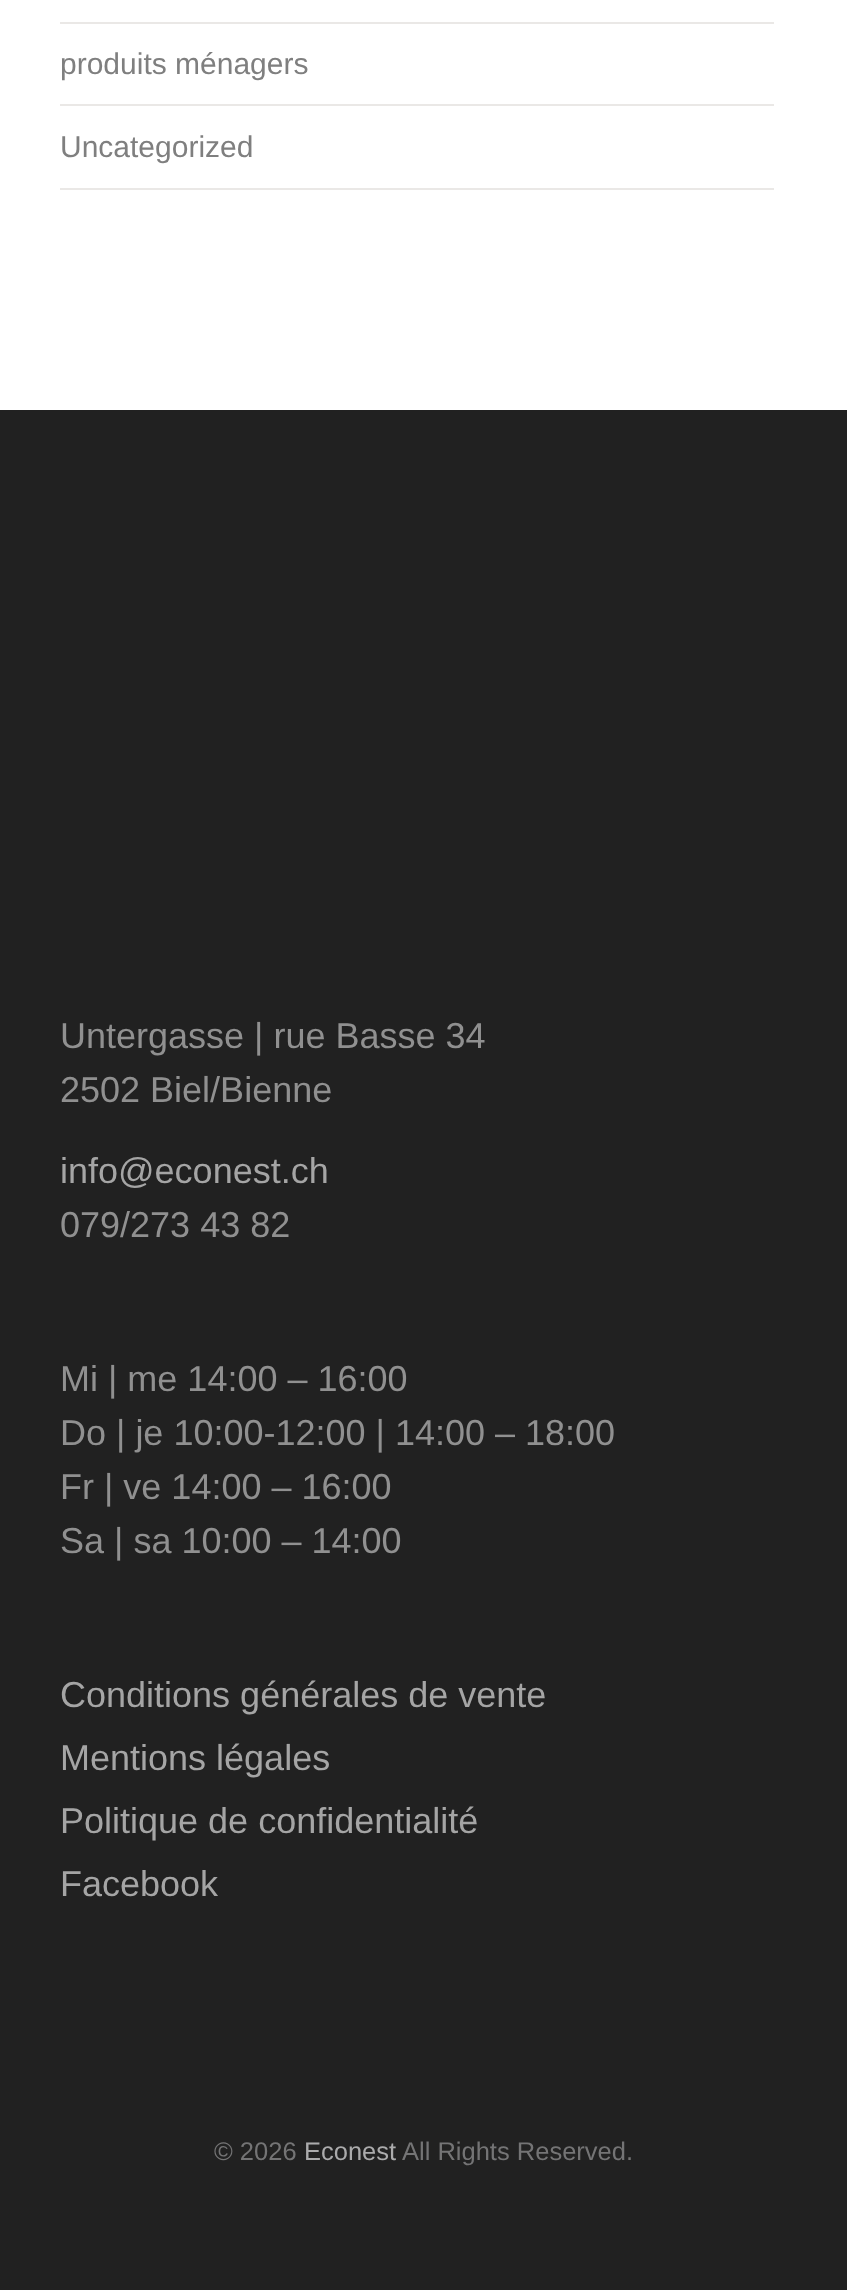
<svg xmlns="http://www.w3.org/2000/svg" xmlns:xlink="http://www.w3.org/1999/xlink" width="847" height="2290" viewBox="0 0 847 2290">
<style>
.cls-1{font:30px Liberation Sans;fill:#7f7f7f}
.cls-2{font:36px Liberation Sans;fill:#909090}
.cls-3{font:36px Liberation Sans;fill:#a5a5a5}
.cls-4{font:25.5px Liberation Sans;fill:#747475}
.cls-5{font:25.5px Liberation Sans;fill:#ababac}
</style>
<rect width="100%" height="100%" fill="#ffffff"/>
<rect fill="#eae8e6" x="60" y="22" width="714" height="2"/>
<rect fill="#eae8e6" x="60" y="104" width="714" height="2"/>
<rect fill="#eae8e6" x="60" y="188" width="714" height="2"/>
<rect fill="#212121" x="0" y="410" width="847" height="1880"/>
<text class="cls-1" x="60" y="74">produits ménagers</text>
<text class="cls-1" x="60" y="157">Uncategorized</text>
<text class="cls-2"><tspan x="60" y="1048">Untergasse | rue Basse 34</tspan><tspan x="60" y="1102">2502 Biel/Bienne</tspan></text>
<text class="cls-3" x="60" y="1183">info@econest.ch</text>
<text class="cls-2" x="60" y="1237">079/273 43 82</text>
<text class="cls-2"><tspan x="60" y="1391">Mi | me 14:00 – 16:00</tspan><tspan x="60" y="1445">Do | je 10:00-12:00 | 14:00 – 18:00</tspan><tspan x="60" y="1499">Fr | ve 14:00 – 16:00</tspan><tspan x="60" y="1553">Sa | sa 10:00 – 14:00</tspan></text>
<text class="cls-3"><tspan x="60" y="1707">Conditions générales de vente</tspan><tspan x="60" y="1770">Mentions légales</tspan><tspan x="60" y="1833">Politique de confidentialité</tspan><tspan x="60" y="1896">Facebook</tspan></text>
<text class="cls-4" x="214" y="2160">© 2026</text>
<text class="cls-5" x="304" y="2160">Econest</text>
<text class="cls-4" x="402" y="2160">All Rights Reserved.</text>
</svg>
